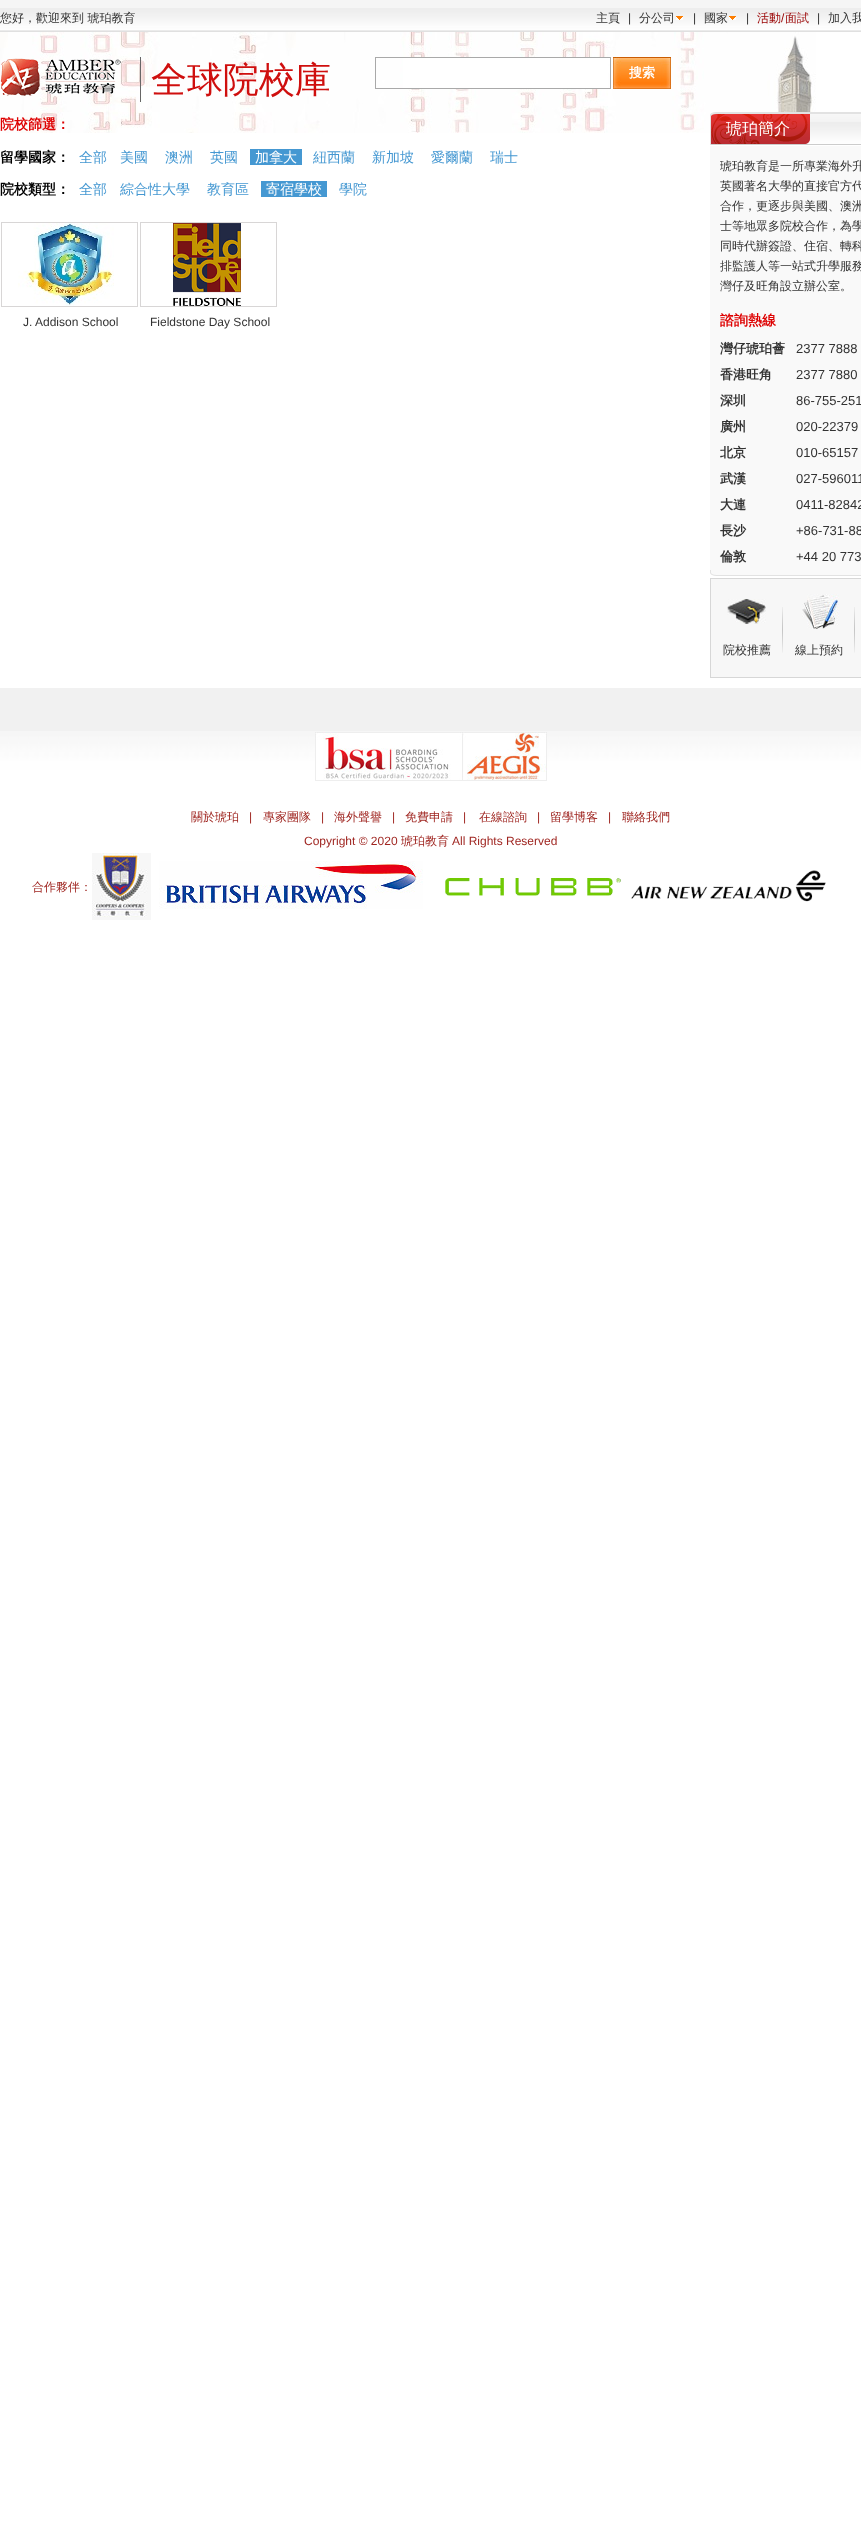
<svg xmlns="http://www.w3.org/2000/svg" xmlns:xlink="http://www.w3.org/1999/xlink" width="861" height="2525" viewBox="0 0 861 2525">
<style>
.cls-1{font:500 12px WenQuanYi Zen Hei;fill:#333333}
.cls-2{font:12px Liberation Sans;fill:#333333}
.cls-3{font:500 12px WenQuanYi Zen Hei;fill:#990000}
.cls-4{font:12px Liberation Sans;fill:#990000}
.cls-5{font:500 36px WenQuanYi Zen Hei;fill:#cf0f0e}
.cls-6{font:bold 13px WenQuanYi Zen Hei;fill:#ffffff}
.cls-7{font:bold 14px WenQuanYi Zen Hei;fill:#de0202}
.cls-8{font:bold 14px WenQuanYi Zen Hei;fill:#000000}
.cls-9{font:500 14px WenQuanYi Zen Hei;fill:#4598d2}
.cls-10{font:500 14px WenQuanYi Zen Hei;fill:#ffffff}
.cls-11{font:500 16px WenQuanYi Zen Hei;fill:#ffffff}
.cls-12{font:bold 13px WenQuanYi Zen Hei;fill:#333333}
.cls-13{font:13px Liberation Sans;fill:#333333}
.cls-14{font:500 12px WenQuanYi Zen Hei;fill:#9f2520}
.cls-15{font:12px Liberation Sans;fill:#9f2520}
</style>
<rect width="100%" height="100%" fill="#ffffff"/>
<rect fill="#f5f5f5" x="0" y="0" width="861" height="8"/>
<image xlink:href="image0.png" x="0" y="8" width="861" height="24"/>
<image xlink:href="image1.png" x="676" y="16" width="7" height="4"/>
<image xlink:href="image1.png" x="729" y="16" width="7" height="4"/>
<image xlink:href="image2.png" x="0" y="32" width="816" height="101"/>
<image xlink:href="image3.png" x="0" y="58" width="121" height="38"/>
<rect fill="#676666" x="140" y="57" width="1" height="45"/>
<rect fill="#ffffff" x="403" y="58" width="205" height="30"/>
<rect fill="none" stroke="#a9a9a9" x="375.5" y="57.5" width="235" height="31"/>
<image xlink:href="image4.png" x="613" y="57" width="58" height="32"/>
<rect fill="#4598d2" x="250" y="149" width="52" height="16"/>
<rect fill="#4598d2" x="261" y="181" width="66" height="16"/>
<rect fill="none" stroke="#d8d6d6" x="1.5" y="222.5" width="136" height="84"/>
<image xlink:href="image5.png" x="18" y="223" width="96" height="83"/>
<rect fill="none" stroke="#d8d6d6" x="140.5" y="222.5" width="136" height="84"/>
<image xlink:href="image6.png" x="173" y="223" width="68" height="83"/>
<image xlink:href="image7.png" x="710" y="112" width="151" height="33"/>
<rect fill="#f9f9f9" x="710" y="146" width="151" height="424"/>
<image xlink:href="image8.png" x="710" y="570" width="151" height="6"/>
<rect fill="#f7f7f7" stroke="#d7d7d7" x="710.5" y="578.5" width="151" height="99"/>
<image xlink:href="image9.png" x="782" y="607" width="1" height="46"/>
<image xlink:href="image10.png" x="727" y="599" width="39" height="25"/>
<image xlink:href="image9.png" x="854" y="607" width="1" height="46"/>
<image xlink:href="image11.png" x="802" y="594" width="37" height="35"/>
<rect fill="#f1f1f1" x="0" y="688" width="861" height="43"/>
<image xlink:href="image12.png" x="0" y="731" width="861" height="77"/>
<image xlink:href="image13.png" x="315" y="732" width="232" height="49"/>
<image xlink:href="image14.png" x="92" y="853" width="59" height="67"/>
<image xlink:href="image15.png" x="159" y="861" width="264" height="48"/>
<image xlink:href="image16.png" x="445" y="878" width="176" height="18"/>
<image xlink:href="image17.png" x="631" y="870" width="195" height="32"/>
<text class="cls-1" x="0" y="22">您好，歡迎來到 琥珀教育</text>
<text class="cls-1" x="596" y="22">主頁</text>
<text class="cls-2" x="628" y="22">|</text>
<text class="cls-1" x="639" y="22">分公司</text>
<text class="cls-2" x="693" y="22">|</text>
<text class="cls-1" x="704" y="22">國家</text>
<text class="cls-2" x="746" y="22">|</text>
<text class="cls-3" x="757" y="22">活動</text>
<text class="cls-4" x="781" y="22">/</text>
<text class="cls-3" x="785" y="22">面試</text>
<text class="cls-2" x="817" y="22">|</text>
<text class="cls-1" x="828" y="22">加入我</text>
<text class="cls-5" x="151" y="92">全球院校庫</text>
<text class="cls-6" x="629" y="77">搜索</text>
<text class="cls-7" x="0" y="129">院校篩選：</text>
<text class="cls-8" x="0" y="162">留學國家：</text>
<text class="cls-9" x="79" y="162">全部</text>
<text class="cls-9" x="120" y="162">美國</text>
<text class="cls-9" x="165" y="162">澳洲</text>
<text class="cls-9" x="210" y="162">英國</text>
<text class="cls-10" x="255" y="162">加拿大</text>
<text class="cls-9" x="313" y="162">紐西蘭</text>
<text class="cls-9" x="372" y="162">新加坡</text>
<text class="cls-9" x="431" y="162">愛爾蘭</text>
<text class="cls-9" x="490" y="162">瑞士</text>
<text class="cls-8" x="0" y="194">院校類型：</text>
<text class="cls-9" x="79" y="194">全部</text>
<text class="cls-9" x="120" y="194">綜合性大學</text>
<text class="cls-9" x="207" y="194">教育區</text>
<text class="cls-10" x="266" y="194">寄宿學校</text>
<text class="cls-9" x="339" y="194">學院</text>
<text class="cls-2" x="23" y="326">J. Addison School</text>
<text class="cls-2" x="150" y="326">Fieldstone Day School</text>
<text class="cls-11" x="726" y="134">琥珀簡介</text>
<text class="cls-1"><tspan x="720" y="170">琥珀教育是一所專業海外升</tspan><tspan x="720" y="190">英國著名大學的直接官方代</tspan><tspan x="720" y="210">合作，更逐步與美國、澳洲</tspan><tspan x="720" y="230">士等地眾多院校合作，為學</tspan><tspan x="720" y="250">同時代辦簽證、住宿、轉科</tspan><tspan x="720" y="270">排監護人等一站式升學服務</tspan><tspan x="720" y="290">灣仔及旺角設立辦公室。</tspan></text>
<text class="cls-7" x="720" y="325">諮詢熱線</text>
<text class="cls-12" x="720" y="353">灣仔琥珀薈</text>
<text class="cls-13" x="796" y="353">2377 7888</text>
<text class="cls-12" x="720" y="379">香港旺角</text>
<text class="cls-13" x="796" y="379">2377 7880</text>
<text class="cls-12" x="720" y="405">深圳</text>
<text class="cls-13" x="796" y="405">86-755-251</text>
<text class="cls-12" x="720" y="431">廣州</text>
<text class="cls-13" x="796" y="431">020-22379</text>
<text class="cls-12" x="720" y="457">北京</text>
<text class="cls-13" x="796" y="457">010-65157</text>
<text class="cls-12" x="720" y="483">武漢</text>
<text class="cls-13" x="796" y="483">027-596011</text>
<text class="cls-12" x="720" y="509">大連</text>
<text class="cls-13" x="796" y="509">0411-82842</text>
<text class="cls-12" x="720" y="535">長沙</text>
<text class="cls-13" x="796" y="535">+86-731-88</text>
<text class="cls-12" x="720" y="561">倫敦</text>
<text class="cls-13" x="796" y="561">+44 20 773</text>
<text class="cls-1" x="723" y="654">院校推薦</text>
<text class="cls-1" x="795" y="654">線上預約</text>
<text class="cls-14" x="191" y="821">關於琥珀</text>
<text class="cls-15" x="249" y="821">|</text>
<text class="cls-14" x="263" y="821">專家團隊</text>
<text class="cls-15" x="321" y="821">|</text>
<text class="cls-14" x="334" y="821">海外聲譽</text>
<text class="cls-15" x="392" y="821">|</text>
<text class="cls-14" x="405" y="821">免費申請</text>
<text class="cls-15" x="463" y="821">|</text>
<text class="cls-14" x="479" y="821">在線諮詢</text>
<text class="cls-15" x="537" y="821">|</text>
<text class="cls-14" x="550" y="821">留學博客</text>
<text class="cls-15" x="608" y="821">|</text>
<text class="cls-14" x="622" y="821">聯絡我們</text>
<text class="cls-15" x="304" y="845">Copyright © 2020</text>
<text class="cls-14" x="401" y="845">琥珀教育</text>
<text class="cls-15" x="452" y="845">All Rights Reserved</text>
<text class="cls-14" x="32" y="891">合作夥伴：</text>
</svg>
